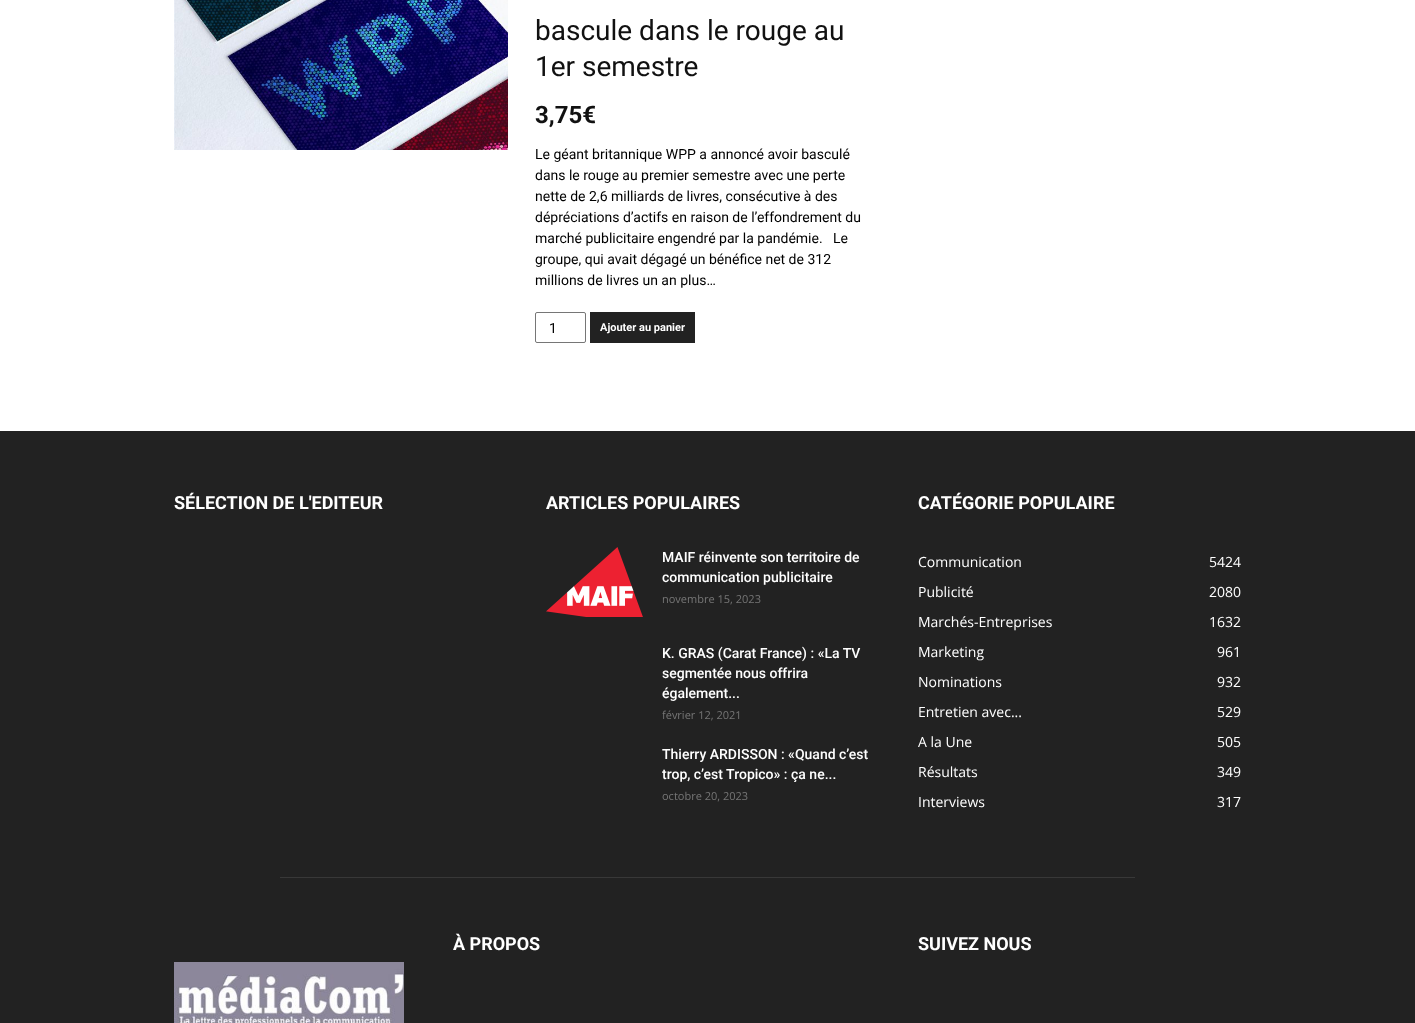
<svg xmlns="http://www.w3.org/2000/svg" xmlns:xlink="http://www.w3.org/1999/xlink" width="1415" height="1023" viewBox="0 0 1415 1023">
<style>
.cls-1{font:28px Roboto;fill:#111111}
.cls-2{font:bold 24px Roboto;fill:#111111}
.cls-3{font:14px Roboto;fill:#000000}
.cls-4{font:bold 11px Roboto;fill:#ffffff}
.cls-5{font:bold 18px Roboto;fill:#ffffff}
.cls-6{font:500 14px Roboto;fill:#ffffff}
.cls-7{font:11px Open Sans;fill:#767676}
.cls-8{font:14px Open Sans;fill:#ffffff}
</style>
<rect width="100%" height="100%" fill="#ffffff"/>
<image xlink:href="image0.png" x="174" y="0" width="334" height="150"/>
<rect fill="none" stroke="#767676" x="535.5" y="312.5" width="50" height="30" rx="1.5"/>
<rect fill="#222222" x="590" y="312" width="105" height="31"/>
<rect fill="#222222" x="0" y="431" width="1415" height="592"/>
<image xlink:href="image1.png" x="546" y="547" width="97" height="70"/>
<rect fill="#383838" x="280" y="877" width="855" height="1"/>
<image xlink:href="image2.png" x="174" y="962" width="230" height="61"/>
<text class="cls-1"><tspan x="535" y="40">bascule dans le rouge au</tspan><tspan x="535" y="76">1er semestre</tspan></text>
<text class="cls-2" x="535" y="123">3,75€</text>
<text class="cls-3" xml:space="preserve"><tspan x="535" y="159">Le géant britannique WPP a annoncé avoir basculé</tspan><tspan x="535" y="180">dans le rouge au premier semestre avec une perte</tspan><tspan x="535" y="201">nette de 2,6 milliards de livres, consécutive à des</tspan><tspan x="535" y="222">dépréciations d’actifs en raison de l’effondrement du</tspan><tspan x="535" y="243">marché publicitaire engendré par la pandémie.   Le</tspan><tspan x="535" y="264">groupe, qui avait dégagé un bénéfice net de 312</tspan><tspan x="535" y="285">millions de livres un an plus…</tspan></text>
<text class="cls-3" x="549" y="333">1</text>
<text class="cls-4" x="600" y="331">Ajouter au panier</text>
<text class="cls-5" x="174" y="509">SÉLECTION DE L'EDITEUR</text>
<text class="cls-5" x="546" y="509">ARTICLES POPULAIRES</text>
<text class="cls-6"><tspan x="662" y="562">MAIF réinvente son territoire de</tspan><tspan x="662" y="582">communication publicitaire</tspan></text>
<text class="cls-7" x="662" y="603">novembre 15, 2023</text>
<text class="cls-6"><tspan x="662" y="658">K. GRAS (Carat France) : «La TV</tspan><tspan x="662" y="678">segmentée nous offrira</tspan><tspan x="662" y="698">également...</tspan></text>
<text class="cls-7" x="662" y="719">février 12, 2021</text>
<text class="cls-6"><tspan x="662" y="759">Thierry ARDISSON : «Quand c’est</tspan><tspan x="662" y="779">trop, c’est Tropico» : ça ne...</tspan></text>
<text class="cls-7" x="662" y="800">octobre 20, 2023</text>
<text class="cls-5" x="918" y="509">CATÉGORIE POPULAIRE</text>
<text class="cls-8" x="918" y="567">Communication</text>
<text class="cls-8" x="1209" y="567">5424</text>
<text class="cls-8" x="918" y="597">Publicité</text>
<text class="cls-8" x="1209" y="597">2080</text>
<text class="cls-8" x="918" y="627">Marchés-Entreprises</text>
<text class="cls-8" x="1209" y="627">1632</text>
<text class="cls-8" x="918" y="657">Marketing</text>
<text class="cls-8" x="1217" y="657">961</text>
<text class="cls-8" x="918" y="687">Nominations</text>
<text class="cls-8" x="1217" y="687">932</text>
<text class="cls-8" x="918" y="717">Entretien avec...</text>
<text class="cls-8" x="1217" y="717">529</text>
<text class="cls-8" x="918" y="747">A la Une</text>
<text class="cls-8" x="1217" y="747">505</text>
<text class="cls-8" x="918" y="777">Résultats</text>
<text class="cls-8" x="1217" y="777">349</text>
<text class="cls-8" x="918" y="807">Interviews</text>
<text class="cls-8" x="1217" y="807">317</text>
<text class="cls-5" x="453" y="950">À PROPOS</text>
<text class="cls-5" x="918" y="950">SUIVEZ NOUS</text>
</svg>
